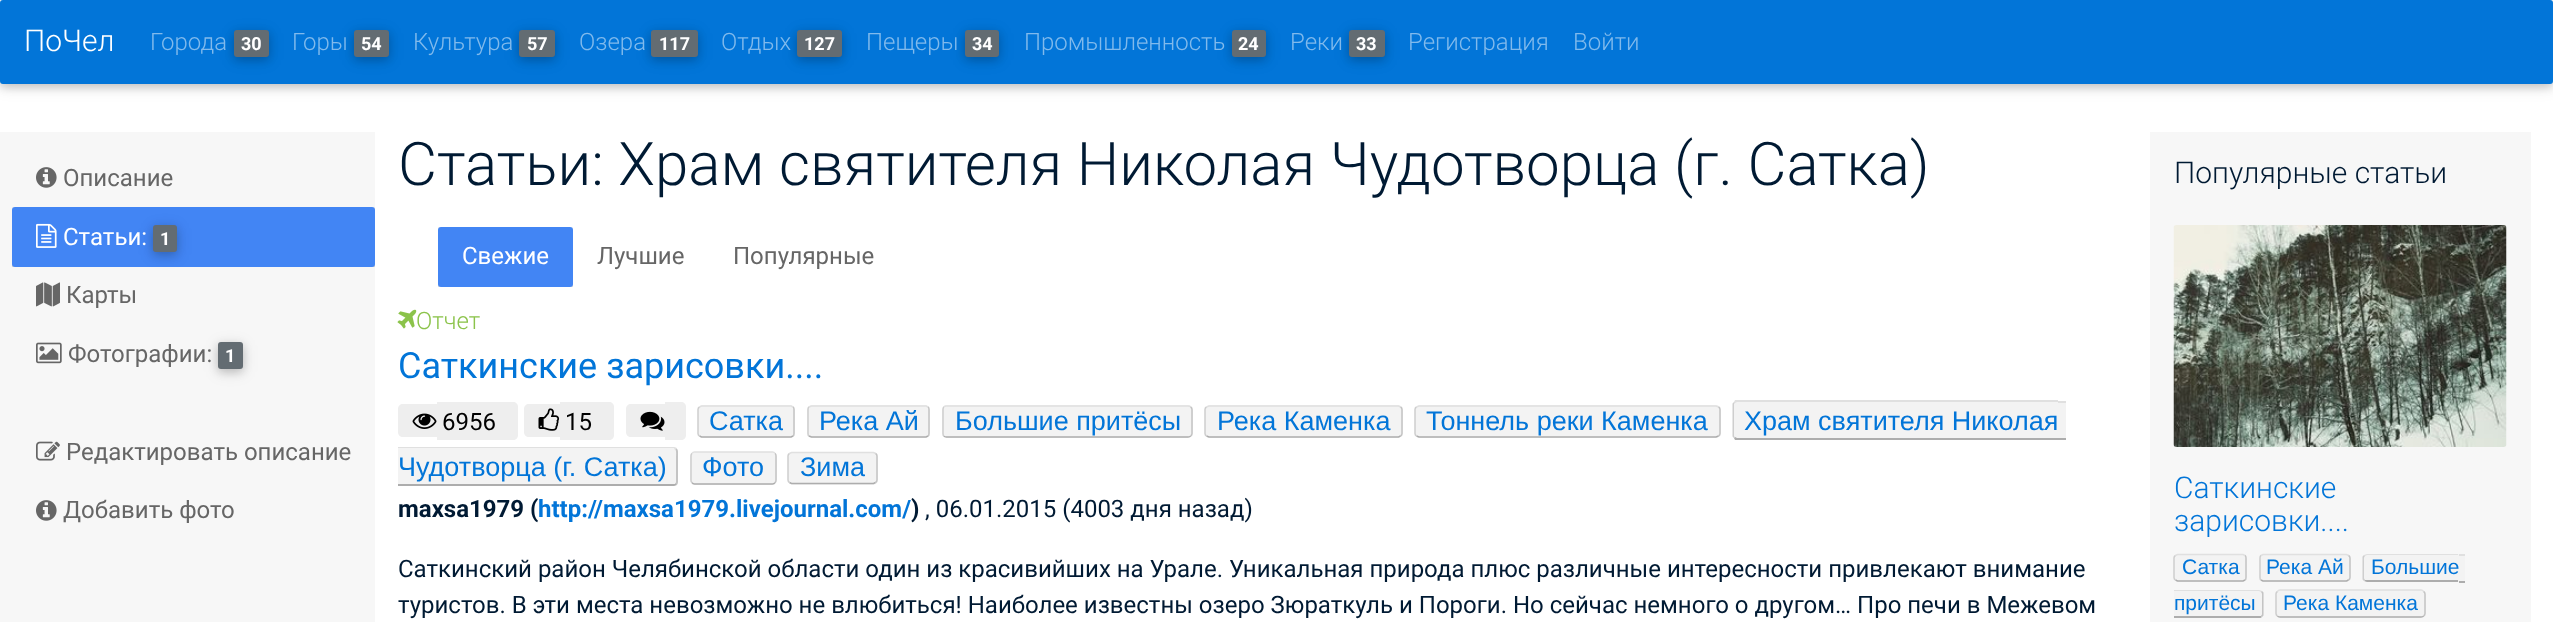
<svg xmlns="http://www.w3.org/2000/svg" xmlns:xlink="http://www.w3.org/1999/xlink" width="2553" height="622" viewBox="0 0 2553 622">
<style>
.cls-1{font:300 30px Roboto;fill:#ffffff}
.cls-2{font:300 24px Roboto;fill:#81baec}
.cls-3{font:bold 18px Roboto;fill:#ffffff}
.cls-4{font:24px Roboto;fill:#666666}
.cls-5{font:24px Roboto;fill:#ffffff}
.cls-6{font:300 60px Roboto;fill:#001a33}
.cls-7{font:300 24px Roboto;fill:#8bc34a}
.cls-8{font:36px Roboto;fill:#0275d8}
.cls-9{font:24px Roboto;fill:#000000}
.cls-10{font:27px Liberation Sans;fill:#0275d8}
.cls-11{font:bold 24px Roboto;fill:#001a33}
.cls-12{font:bold 24px Roboto;fill:#0275d8}
.cls-13{font:24px Roboto;fill:#001a33}
.cls-14{font:300 30px Roboto;fill:#001a33}
.cls-15{font:300 30px Roboto;fill:#0275d8}
.cls-16{font:21px Liberation Sans;fill:#0275d8}
</style>
<defs>
<clipPath id="clip1"><rect x="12" y="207" width="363" height="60"/></clipPath>
<clipPath id="clip2"><rect x="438" y="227" width="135" height="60"/></clipPath>
</defs>
<rect width="100%" height="100%" fill="#ffffff"/>
<rect fill="#000000" fill-opacity="0.12" filter="blur(7.5px)" x="0" y="3" width="2553" height="84" rx="3"/>
<rect fill="#000000" fill-opacity="0.16" filter="blur(4px)" x="0" y="3" width="2553" height="84" rx="3"/>
<rect fill="#0275d8" x="0" y="0" width="2553" height="84" rx="3"/>
<rect fill="#000000" fill-opacity="0.12" filter="blur(7.5px)" x="234" y="33" width="35" height="27" rx="3"/>
<rect fill="#000000" fill-opacity="0.16" filter="blur(4px)" x="234" y="33" width="35" height="27" rx="3"/>
<rect fill="#636c72" x="234" y="30" width="35" height="27" rx="3"/>
<rect fill="#000000" fill-opacity="0.12" filter="blur(7.5px)" x="354" y="33" width="35" height="27" rx="3"/>
<rect fill="#000000" fill-opacity="0.16" filter="blur(4px)" x="354" y="33" width="35" height="27" rx="3"/>
<rect fill="#636c72" x="354" y="30" width="35" height="27" rx="3"/>
<rect fill="#000000" fill-opacity="0.12" filter="blur(7.5px)" x="519" y="33" width="36" height="27" rx="3"/>
<rect fill="#000000" fill-opacity="0.16" filter="blur(4px)" x="519" y="33" width="36" height="27" rx="3"/>
<rect fill="#636c72" x="519" y="30" width="36" height="27" rx="3"/>
<rect fill="#000000" fill-opacity="0.12" filter="blur(7.5px)" x="651" y="33" width="47" height="27" rx="3"/>
<rect fill="#000000" fill-opacity="0.16" filter="blur(4px)" x="651" y="33" width="47" height="27" rx="3"/>
<rect fill="#636c72" x="651" y="30" width="47" height="27" rx="3"/>
<rect fill="#000000" fill-opacity="0.12" filter="blur(7.5px)" x="797" y="33" width="45" height="27" rx="3"/>
<rect fill="#000000" fill-opacity="0.16" filter="blur(4px)" x="797" y="33" width="45" height="27" rx="3"/>
<rect fill="#636c72" x="797" y="30" width="45" height="27" rx="3"/>
<rect fill="#000000" fill-opacity="0.12" filter="blur(7.5px)" x="965" y="33" width="34" height="27" rx="3"/>
<rect fill="#000000" fill-opacity="0.16" filter="blur(4px)" x="965" y="33" width="34" height="27" rx="3"/>
<rect fill="#636c72" x="965" y="30" width="34" height="27" rx="3"/>
<rect fill="#000000" fill-opacity="0.12" filter="blur(7.5px)" x="1232" y="33" width="34" height="27" rx="3"/>
<rect fill="#000000" fill-opacity="0.16" filter="blur(4px)" x="1232" y="33" width="34" height="27" rx="3"/>
<rect fill="#636c72" x="1232" y="30" width="34" height="27" rx="3"/>
<rect fill="#000000" fill-opacity="0.12" filter="blur(7.5px)" x="1349" y="33" width="36" height="27" rx="3"/>
<rect fill="#000000" fill-opacity="0.16" filter="blur(4px)" x="1349" y="33" width="36" height="27" rx="3"/>
<rect fill="#636c72" x="1349" y="30" width="36" height="27" rx="3"/>
<rect fill="#f7f7f7" x="0" y="132" width="375" height="490"/>
<image xlink:href="image0.png" x="36" y="167" width="21" height="21"/>
<g clip-path="url(#clip1)">
<rect fill="#000000" fill-opacity="0.15" filter="blur(11px)" x="12" y="213" width="363" height="60" rx="3"/>
<rect fill="#000000" fill-opacity="0.18" filter="blur(8px)" x="12" y="215" width="363" height="60" rx="3"/>
</g>
<rect fill="#4285f4" x="12" y="207" width="363" height="60" rx="3"/>
<image xlink:href="image1.png" x="36" y="223" width="21" height="25"/>
<rect fill="#000000" fill-opacity="0.12" filter="blur(7.5px)" x="153" y="228" width="24" height="27" rx="3"/>
<rect fill="#000000" fill-opacity="0.16" filter="blur(4px)" x="153" y="228" width="24" height="27" rx="3"/>
<rect fill="#636c72" x="153" y="225" width="24" height="27" rx="3"/>
<image xlink:href="image2.png" x="36" y="282" width="24" height="25"/>
<image xlink:href="image3.png" x="36" y="342" width="26" height="22"/>
<rect fill="#000000" fill-opacity="0.12" filter="blur(7.5px)" x="218" y="345" width="25" height="27" rx="3"/>
<rect fill="#000000" fill-opacity="0.16" filter="blur(4px)" x="218" y="345" width="25" height="27" rx="3"/>
<rect fill="#636c72" x="218" y="342" width="25" height="27" rx="3"/>
<image xlink:href="image4.png" x="36" y="441" width="24" height="20"/>
<image xlink:href="image0.png" x="36" y="500" width="21" height="21"/>
<image xlink:href="image5.png" x="397" y="309" width="20" height="20"/>
<g clip-path="url(#clip2)">
<rect fill="#000000" fill-opacity="0.15" filter="blur(11px)" x="438" y="233" width="135" height="60" rx="3"/>
<rect fill="#000000" fill-opacity="0.18" filter="blur(8px)" x="438" y="234" width="135" height="60" rx="3"/>
</g>
<rect fill="#4285f4" x="438" y="227" width="135" height="60" rx="3"/>
<path fill="#eeeeee" d="M403 404H437V437H403C400 437 398 435 398 432V409C398 406 400 404 403 404Z"/>
<rect fill="#eeeeee" x="437" y="402" width="60" height="38"/>
<path fill="#eeeeee" d="M497 402H513C516 402 518 404 518 407V435C518 438 516 440 513 440H497Z"/>
<image xlink:href="image6.png" x="412" y="413" width="25" height="16"/>
<path fill="#eeeeee" d="M529 404H560V437H529C526 437 524 435 524 432V409C524 406 526 404 529 404Z"/>
<rect fill="#eeeeee" x="560" y="402" width="33" height="38"/>
<path fill="#eeeeee" d="M593 402H609C612 402 614 404 614 407V435C614 438 612 440 609 440H593Z"/>
<image xlink:href="image7.png" x="538" y="408" width="22" height="23"/>
<path fill="#eeeeee" d="M631 404H665V437H631C628 437 626 435 626 432V409C626 406 628 404 631 404Z"/>
<rect fill="#eeeeee" x="665" y="402" width="6" height="38"/>
<path fill="#eeeeee" d="M671 402H681C684 402 686 404 686 407V435C686 438 684 440 681 440H671Z"/>
<image xlink:href="image8.png" x="640" y="411" width="25" height="20"/>
<rect fill="#f3f3f3" x="698" y="405" width="97" height="33" rx="5"/>
<path fill="none" stroke="#e0e0e0" stroke-width="1.5" d="M699.5 407L701.5 406H791L793 407"/>
<path fill="none" stroke="#c4c4c4" stroke-width="1.5" d="M793 407C794 407.5 794 408.5 794 409.5V433.5C794 434.5 794 435.5 793 436"/>
<path fill="none" stroke="#adadad" stroke-width="1.5" d="M793 436L791 437H701.5L699.5 436"/>
<path fill="none" stroke="#cecece" stroke-width="1.5" d="M699.5 436C698.5 435.5 698 434.5 698 433.5V409.5C698 408.5 698.5 407.5 699.5 407"/>
<rect fill="#f3f3f3" x="807" y="405" width="123" height="33" rx="5"/>
<path fill="none" stroke="#e0e0e0" stroke-width="1.5" d="M809 407L811.5 406H926L928 407"/>
<path fill="none" stroke="#c4c4c4" stroke-width="1.5" d="M928 407C929 407.5 929 408.5 929 409.5V433.5C929 434.5 929 435.5 928 436"/>
<path fill="none" stroke="#adadad" stroke-width="1.5" d="M928 436L926 437H830.5H811.5L809 436"/>
<path fill="none" stroke="#cecece" stroke-width="1.5" d="M809 436C808 435.5 808 434.5 808 433.5V409.5C808 408.5 808 407.5 809 407"/>
<rect fill="#f3f3f3" x="942" y="405" width="251" height="33" rx="5"/>
<path fill="none" stroke="#e0e0e0" stroke-width="1.5" d="M944 407C944.5 406 945.5 406 946.5 406H1188C1189 406 1190 406 1190.5 407"/>
<path fill="none" stroke="#c4c4c4" stroke-width="1.5" d="M1190.5 407C1191.5 407.5 1192 408.5 1192 409.5V433.5C1192 434.5 1191.5 435.5 1190.5 436"/>
<path fill="none" stroke="#adadad" stroke-width="1.5" d="M1190.5 436C1190 437 1189 437 1188 437H946.5C945.5 437 944.5 437 944 436"/>
<path fill="none" stroke="#cecece" stroke-width="1.5" d="M944 436C943 435.5 943 434.5 943 433.5V409.5C943 408.5 943 407.5 944 407"/>
<rect fill="#f3f3f3" x="1205" y="405" width="198" height="33" rx="5"/>
<path fill="none" stroke="#e0e0e0" stroke-width="1.5" d="M1206.5 407L1209 406H1398.5L1400.5 407"/>
<path fill="none" stroke="#c4c4c4" stroke-width="1.5" d="M1400.5 407C1401.5 407.5 1402 408.5 1402 409.5V433.5C1402 434.5 1401.5 435.5 1400.5 436"/>
<path fill="none" stroke="#adadad" stroke-width="1.5" d="M1400.5 436L1398.5 437H1240.5H1209L1206.5 436"/>
<path fill="none" stroke="#cecece" stroke-width="1.5" d="M1206.5 436C1205.5 435.5 1205 434.5 1205 433.5V409.5C1205 408.5 1205.5 407.5 1206.5 407"/>
<rect fill="#f3f3f3" x="1415" y="405" width="306" height="33" rx="5"/>
<path fill="none" stroke="#e0e0e0" stroke-width="1.5" d="M1416.5 407L1419 406H1716L1718.5 407"/>
<path fill="none" stroke="#c4c4c4" stroke-width="1.5" d="M1718.5 407C1719.5 407.5 1720 408.5 1720 409.5V433.5C1720 434.5 1719.5 435.5 1718.5 436"/>
<path fill="none" stroke="#adadad" stroke-width="1.5" d="M1718.5 436L1716 437H1419L1416.5 436"/>
<path fill="none" stroke="#cecece" stroke-width="1.5" d="M1416.5 436C1415.5 435.5 1415 434.5 1415 433.5V409.5C1415 408.5 1415.5 407.5 1416.5 407"/>
<path fill="#f3f3f3" d="M1738 401H2058V440H1738C1735 440 1733 438 1733 435V406C1733 403 1735 401 1738 401Z"/>
<path fill="#e0e0e0" d="M1737 402L1735 403L1734 402L1735 400H2058V402Z"/>
<path fill="#adadad" d="M2058 440H1735L1734 438L1735 437L1737 438H2058Z"/>
<path fill="#cecece" d="M1732.5 403.5L1734 402L1735 403C1734 403 1734 404 1734 405V435C1734 436 1734 437 1735 437L1734 438L1732.5 436.5Z"/>
<rect fill="#f3f3f3" x="2058" y="401" width="8" height="39"/>
<rect fill="#e0e0e0" x="2058" y="401" width="8" height="2"/>
<rect fill="#adadad" x="2058" y="438" width="8" height="2"/>
<path fill="#f3f3f3" d="M398 447H673C676 447 678 449 678 452V481C678 484 676 486 673 486H398Z"/>
<path fill="#e0e0e0" d="M398 447H674L677 448L675 450L674 448H398Z"/>
<path fill="#c4c4c4" d="M675.5 483.5L676 482V457C676 455 676.5 451.5 675.5 449.5L676.5 448.5C677.5 449 678 450.5 678 452V482C678 483 677.5 484 677 485Z"/>
<path fill="#adadad" d="M398 486H674L677 485L675 483V484H582H398Z"/>
<rect fill="#f3f3f3" x="690" y="452" width="87" height="33" rx="5"/>
<path fill="none" stroke="#e0e0e0" stroke-width="1.5" d="M692 453.5C692.5 452.5 693.5 452 694.5 452H772.5C773.5 452 774.5 452.5 775 453.5"/>
<path fill="none" stroke="#c4c4c4" stroke-width="1.5" d="M775 453.5C776 454 776 455 776 456V480C776 481 776 482 775 482.5"/>
<path fill="none" stroke="#adadad" stroke-width="1.5" d="M775 482.5C774.5 483.5 773.5 484 772.5 484H694.5C693.5 484 692.5 483.5 692 482.5"/>
<path fill="none" stroke="#cecece" stroke-width="1.5" d="M692 482.5C691 482 691 481 691 480V456C691 455 691 454 692 453.5"/>
<rect fill="#f3f3f3" x="788" y="452" width="90" height="33" rx="5"/>
<path fill="none" stroke="#e0e0e0" stroke-width="1.5" d="M789.5 453.5L791.5 452.5H873.5L875.5 453.5"/>
<path fill="none" stroke="#c4c4c4" stroke-width="1.5" d="M875.5 453.5C876.5 454 877 455 877 456V480C877 481 876.5 482 875.5 482.5"/>
<path fill="none" stroke="#adadad" stroke-width="1.5" d="M875.5 482.5L873.5 483.5H791.5L789.5 482.5"/>
<path fill="none" stroke="#cecece" stroke-width="1.5" d="M789.5 482.5C788.5 482 788 481 788 480V456C788 455 788.5 454 789.5 453.5"/>
<rect fill="#f7f7f7" x="2150" y="132" width="381" height="490"/>
<image xlink:href="image9.png" x="2173" y="225" width="334" height="222"/>
<rect fill="#f3f3f3" x="2174" y="554" width="73" height="28" rx="5"/>
<path fill="none" stroke="#e0e0e0" stroke-width="1.5" d="M2175.5 555.5L2177.5 554.5H2243L2245 555.5"/>
<path fill="none" stroke="#c4c4c4" stroke-width="1.5" d="M2245 555.5C2246 556 2246 557 2246 558V577.5C2246 578.5 2246 579.5 2245 580"/>
<path fill="none" stroke="#adadad" stroke-width="1.5" d="M2245 580L2243 581H2177.5L2175.5 580"/>
<path fill="none" stroke="#cecece" stroke-width="1.5" d="M2175.5 580C2174.5 579.5 2174 578.5 2174 577.5V558C2174 557 2174.5 556 2175.5 555.5"/>
<rect fill="#f3f3f3" x="2259" y="554" width="92" height="28" rx="5"/>
<path fill="none" stroke="#e0e0e0" stroke-width="1.5" d="M2261 555.5L2263 554.5H2346.5L2348.5 555.5"/>
<path fill="none" stroke="#c4c4c4" stroke-width="1.5" d="M2348.5 555.5C2349.5 556 2350 557 2350 558V577.5C2350 578.5 2349.5 579.5 2348.5 580"/>
<path fill="none" stroke="#adadad" stroke-width="1.5" d="M2348.5 580L2346.5 581H2263L2261 580"/>
<path fill="none" stroke="#cecece" stroke-width="1.5" d="M2261 580C2260 579.5 2260 578.5 2260 577.5V558C2260 557 2260 556 2261 555.5"/>
<path fill="#f3f3f3" d="M2368 554H2459V582H2368C2365 582 2363 580 2363 577V559C2363 556 2365 554 2368 554Z"/>
<path fill="#e0e0e0" d="M2367 554H2458V555H2367L2365 556L2364 555Z"/>
<path fill="#adadad" d="M2367 582H2458V580H2367H2365L2364 581Z"/>
<path fill="#cecece" d="M2365 579.5L2364 581L2362.5 579.5V556.5L2364 555L2365 556C2363.5 557 2364 560 2364 561.5V578.5Z"/>
<rect fill="#f3f3f3" x="2459" y="554" width="6" height="28"/>
<rect fill="#e0e0e0" x="2459" y="554" width="6" height="2"/>
<rect fill="#adadad" x="2459" y="581" width="6" height="2"/>
<path fill="#f3f3f3" d="M2174 590H2259C2262 590 2264 592 2264 595V613C2264 616 2262 618 2259 618H2174Z"/>
<path fill="#e0e0e0" d="M2174 590H2259L2262 591L2261 592L2259 591H2174Z"/>
<path fill="#c4c4c4" d="M2261 615.5L2262 614.5V597.5C2262 596 2262.5 593 2261 592L2262 591L2263.5 592.5V615.5L2262 617Z"/>
<path fill="#adadad" d="M2174 618H2259C2260 618 2261 618 2262 617L2261 616H2259H2174Z"/>
<rect fill="#f3f3f3" x="2276" y="590" width="150" height="28" rx="5"/>
<path fill="none" stroke="#e0e0e0" stroke-width="1.5" d="M2277.5 591.5C2278 590.5 2279 590 2280 590H2421C2422 590 2423 590.5 2423.5 591.5"/>
<path fill="none" stroke="#c4c4c4" stroke-width="1.5" d="M2423.5 591.5C2424.5 592 2425 593 2425 594V613.5C2425 614.5 2424.5 615.5 2423.5 616"/>
<path fill="none" stroke="#adadad" stroke-width="1.5" d="M2423.5 616C2423 617 2422 617 2421 617H2280C2279 617 2278 617 2277.5 616"/>
<path fill="none" stroke="#cecece" stroke-width="1.5" d="M2277.5 616C2276.5 615.5 2276 614.5 2276 613.5V594C2276 593 2276.5 592 2277.5 591.5"/>
<text class="cls-1" x="24" y="51">ПоЧел</text>
<text class="cls-2" x="150" y="50">Города</text>
<text class="cls-3" x="241" y="50">30</text>
<text class="cls-2" x="292" y="50">Горы</text>
<text class="cls-3" x="361" y="50">54</text>
<text class="cls-2" x="413" y="50">Культура</text>
<text class="cls-3" x="527" y="50">57</text>
<text class="cls-2" x="579" y="50">Озера</text>
<text class="cls-3" x="659" y="50">117</text>
<text class="cls-2" x="721" y="50">Отдых</text>
<text class="cls-3" x="804" y="50">127</text>
<text class="cls-2" x="866" y="50">Пещеры</text>
<text class="cls-3" x="972" y="50">34</text>
<text class="cls-2" x="1024" y="50">Промышленность</text>
<text class="cls-3" x="1238" y="50">24</text>
<text class="cls-2" x="1290" y="50">Реки</text>
<text class="cls-3" x="1356" y="50">33</text>
<text class="cls-2" x="1408" y="50">Регистрация</text>
<text class="cls-2" x="1573" y="50">Войти</text>
<text class="cls-4" x="63" y="186">Описание</text>
<text class="cls-5" x="63" y="245">Статьи:</text>
<text class="cls-3" x="160" y="245">1</text>
<text class="cls-4" x="66" y="303">Карты</text>
<text class="cls-4" x="68" y="362">Фотографии:</text>
<text class="cls-3" x="225" y="362">1</text>
<text class="cls-4" x="66" y="460">Редактировать описание</text>
<text class="cls-4" x="63" y="518">Добавить фото</text>
<text class="cls-6" x="398" y="185">Статьи: Храм святителя Николая Чудотворца (г. Сатка)</text>
<text class="cls-5" x="462" y="264">Свежие</text>
<text class="cls-4" x="597" y="264">Лучшие</text>
<text class="cls-4" x="733" y="264">Популярные</text>
<text class="cls-7" x="416" y="329">Отчет</text>
<text class="cls-8" x="398" y="378">Саткинские зарисовки....</text>
<text class="cls-9" x="442" y="430">6956</text>
<text class="cls-9" x="565" y="430">15</text>
<text class="cls-10" x="709" y="430">Сатка</text>
<text class="cls-10" x="819" y="430">Река Ай</text>
<text class="cls-10" x="955" y="430">Большие притёсы</text>
<text class="cls-10" x="1217" y="430">Река Каменка</text>
<text class="cls-10" x="1426" y="430">Тоннель реки Каменка</text>
<text class="cls-10" x="1744" y="430">Храм святителя Николая</text>
<text class="cls-10" x="398" y="476">Чудотворца (г. Сатка)</text>
<text class="cls-10" x="702" y="476">Фото</text>
<text class="cls-10" x="800" y="476">Зима</text>
<text class="cls-11" x="398" y="517">maxsa1979 (</text>
<text class="cls-12" x="538" y="517">http://maxsa1979.livejournal.com/</text>
<text class="cls-11" x="911" y="517">)</text>
<text class="cls-13" x="925" y="517">, 06.01.2015 (4003 дня назад)</text>
<text class="cls-13"><tspan x="398" y="577">Саткинский район Челябинской области один из красивийших на Урале. Уникальная природа плюс различные интересности привлекают внимание</tspan><tspan x="398" y="613">туристов. В эти места невозможно не влюбиться! Наиболее известны озеро Зюраткуль и Пороги. Но сейчас немного о другом… Про печи в Межевом</tspan></text>
<text class="cls-14" x="2174" y="183">Популярные статьи</text>
<text class="cls-15"><tspan x="2174" y="498">Саткинские</tspan><tspan x="2174" y="531">зарисовки....</tspan></text>
<text class="cls-16" x="2182" y="574">Сатка</text>
<text class="cls-16" x="2266" y="574">Река Ай</text>
<text class="cls-16" x="2371" y="574">Большие</text>
<text class="cls-16" x="2174" y="610">притёсы</text>
<text class="cls-16" x="2283" y="610">Река Каменка</text>
</svg>
